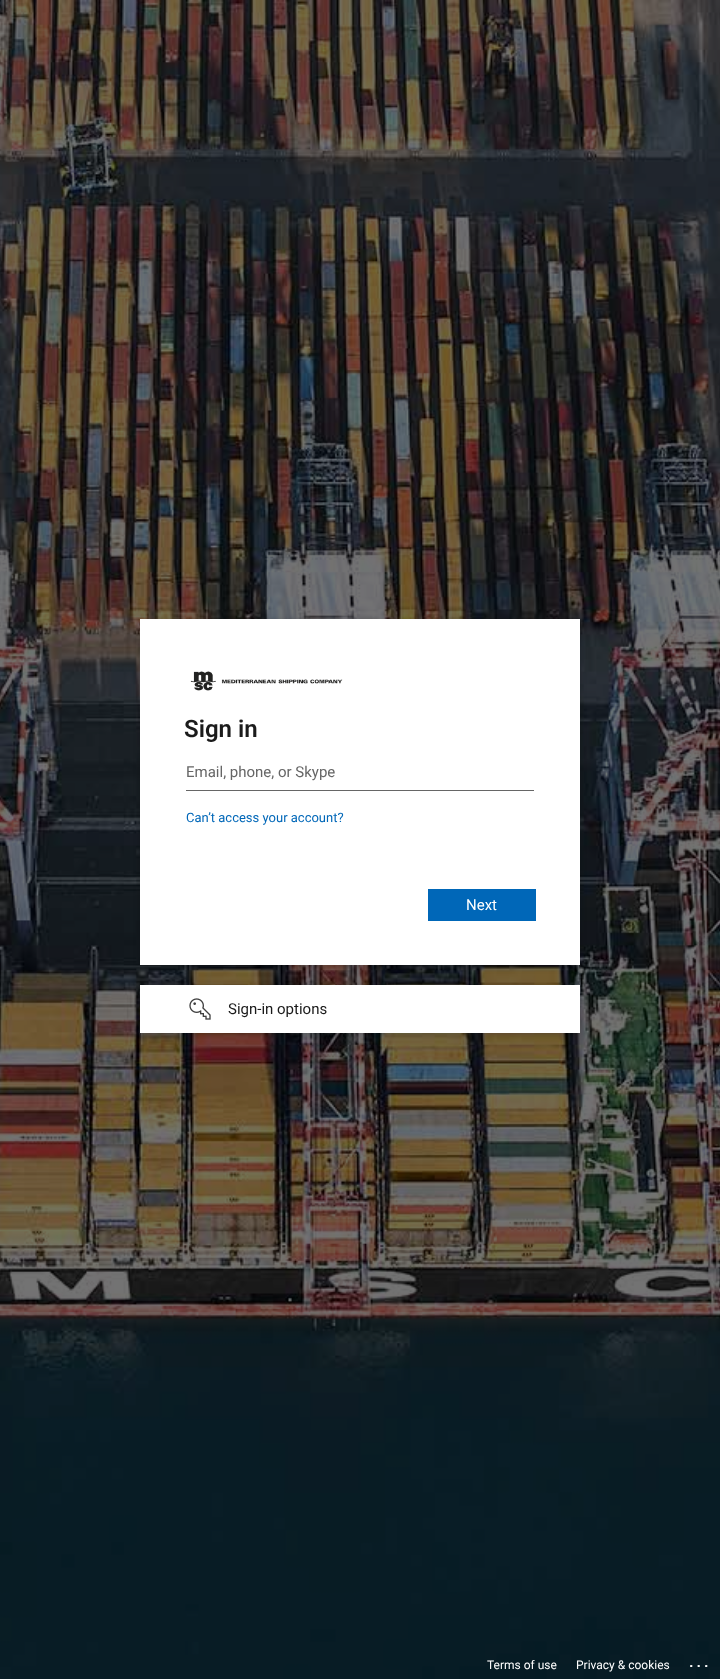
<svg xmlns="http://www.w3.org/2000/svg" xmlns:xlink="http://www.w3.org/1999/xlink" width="720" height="1679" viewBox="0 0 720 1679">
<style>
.cls-1{font:600 24px Roboto;fill:#1b1b1b}
.cls-2{font:15px Roboto;fill:#666666}
.cls-3{font:13px Roboto;fill:#0067b8}
.cls-4{font:15px Roboto;fill:#ffffff}
.cls-5{font:15px Roboto;fill:#1b1b1b}
.cls-6{font:12px Roboto;fill:#ffffff}
.cls-7{font:600 16px Roboto;letter-spacing:3px;fill:#ffffff}
</style>
<rect width="100%" height="100%" fill="#ffffff"/>
<image xlink:href="image0.png" x="0" y="0" width="720" height="1679"/>
<rect fill="#000000" fill-opacity="0.2" filter="blur(3px)" x="140" y="621" width="440" height="346"/>
<rect fill="#ffffff" x="140" y="619" width="440" height="346"/>
<image xlink:href="image1.png" x="190" y="671" width="153" height="20"/>
<rect fill="#666666" x="186" y="790" width="348" height="1"/>
<rect fill="#0067b8" x="428" y="889" width="108" height="32"/>
<rect fill="#000000" fill-opacity="0.2" filter="blur(3px)" x="140" y="987" width="440" height="48"/>
<rect fill="#ffffff" x="140" y="985" width="440" height="48"/>
<image xlink:href="image2.png" x="189" y="998" width="22" height="22"/>
<text class="cls-1" x="184" y="737">Sign in</text>
<text class="cls-2" x="186" y="777">Email, phone, or Skype</text>
<text class="cls-3" x="186" y="822">Can’t access your account?</text>
<text class="cls-4" x="466" y="910">Next</text>
<text class="cls-5" x="228" y="1014">Sign-in options</text>
<text class="cls-6" x="487" y="1669">Terms of use</text>
<text class="cls-6" x="576" y="1669">Privacy &amp; cookies</text>
<text class="cls-7" x="689" y="1667">...</text>
</svg>
